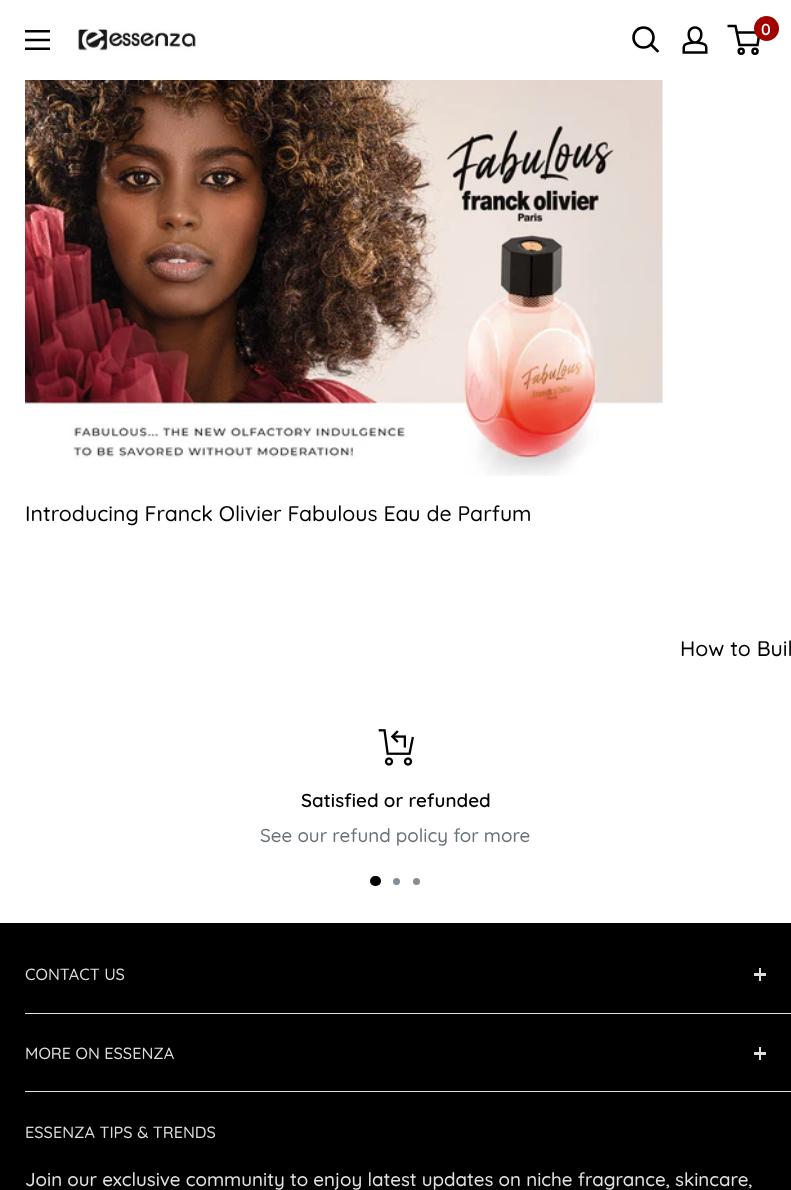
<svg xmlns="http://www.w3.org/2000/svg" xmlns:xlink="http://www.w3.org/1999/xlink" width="791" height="1190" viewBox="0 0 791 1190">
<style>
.cls-1{font:600 16px Quicksand;fill:#ffffff}
.cls-2{font:500 21.25px Quicksand;fill:#000000}
.cls-3{font:600 18.75px Quicksand;fill:#000000}
.cls-4{font:500 18.75px Quicksand;fill:#677279}
.cls-5{font:500 16.25px Quicksand;fill:#dddddd}
.cls-6{font:500 18.75px Quicksand;fill:#e1e3e4}
</style>
<rect width="100%" height="100%" fill="#ffffff"/>
<image xlink:href="image0.png" x="25" y="30" width="25" height="20"/>
<image xlink:href="image1.png" x="78" y="29" width="118" height="22"/>
<path fill="none" stroke="#000000" stroke-width="2.6" stroke-linecap="square" d="M657.5 51L651 44.5"/>
<circle fill="none" stroke="#000000" stroke-width="2.6" cx="643.5" cy="37.5" r="10"/>
<image xlink:href="image2.png" x="682" y="26" width="26" height="28"/>
<circle fill="none" stroke="#000000" stroke-width="2.5" cx="741.2" cy="51.2" r="2.5"/>
<circle fill="none" stroke="#000000" stroke-width="2.5" cx="755" cy="51.2" r="2.5"/>
<path fill="none" stroke="#000000" stroke-width="2.5" d="M736.5 32.5H759.5L757.5 45H739.5L735.5 26H727.5"/>
<circle fill="#a30000" cx="766.5" cy="28.5" r="12.5"/>
<image xlink:href="image3.png" x="25" y="80" width="638" height="396"/>
<image xlink:href="image4.png" x="378" y="729" width="36" height="37"/>
<rect fill="#000000" x="370" y="876" width="11" height="10" rx="5"/>
<circle fill="#858e94" cx="396.5" cy="881.5" r="3.5"/>
<circle fill="#858e94" cx="416.5" cy="881.5" r="3.5"/>
<rect fill="#000000" x="0" y="923" width="791" height="267"/>
<rect fill="#e1e3e4" x="25" y="1013" width="766" height="1"/>
<rect fill="#dddddd" x="759" y="968" width="2" height="13"/>
<rect fill="#dddddd" x="754" y="973" width="12" height="3"/>
<rect fill="#e1e3e4" x="25" y="1091" width="766" height="1"/>
<rect fill="#dddddd" x="759" y="1047" width="2" height="13"/>
<rect fill="#dddddd" x="754" y="1052" width="12" height="3"/>
<text class="cls-1" x="761" y="35">0</text>
<text class="cls-2" x="25" y="521">Introducing Franck Olivier Fabulous Eau de Parfum</text>
<text class="cls-2" x="680" y="656">How to Buil</text>
<text class="cls-3" x="301" y="807">Satisfied or refunded</text>
<text class="cls-4" x="260" y="842">See our refund policy for more</text>
<text class="cls-5" x="25" y="980">CONTACT US</text>
<text class="cls-5" x="25" y="1059">MORE ON ESSENZA</text>
<text class="cls-5" x="25" y="1138">ESSENZA TIPS &amp; TRENDS</text>
<text class="cls-6" x="25" y="1186">Join our exclusive community to enjoy latest updates on niche fragrance, skincare,</text>
</svg>
